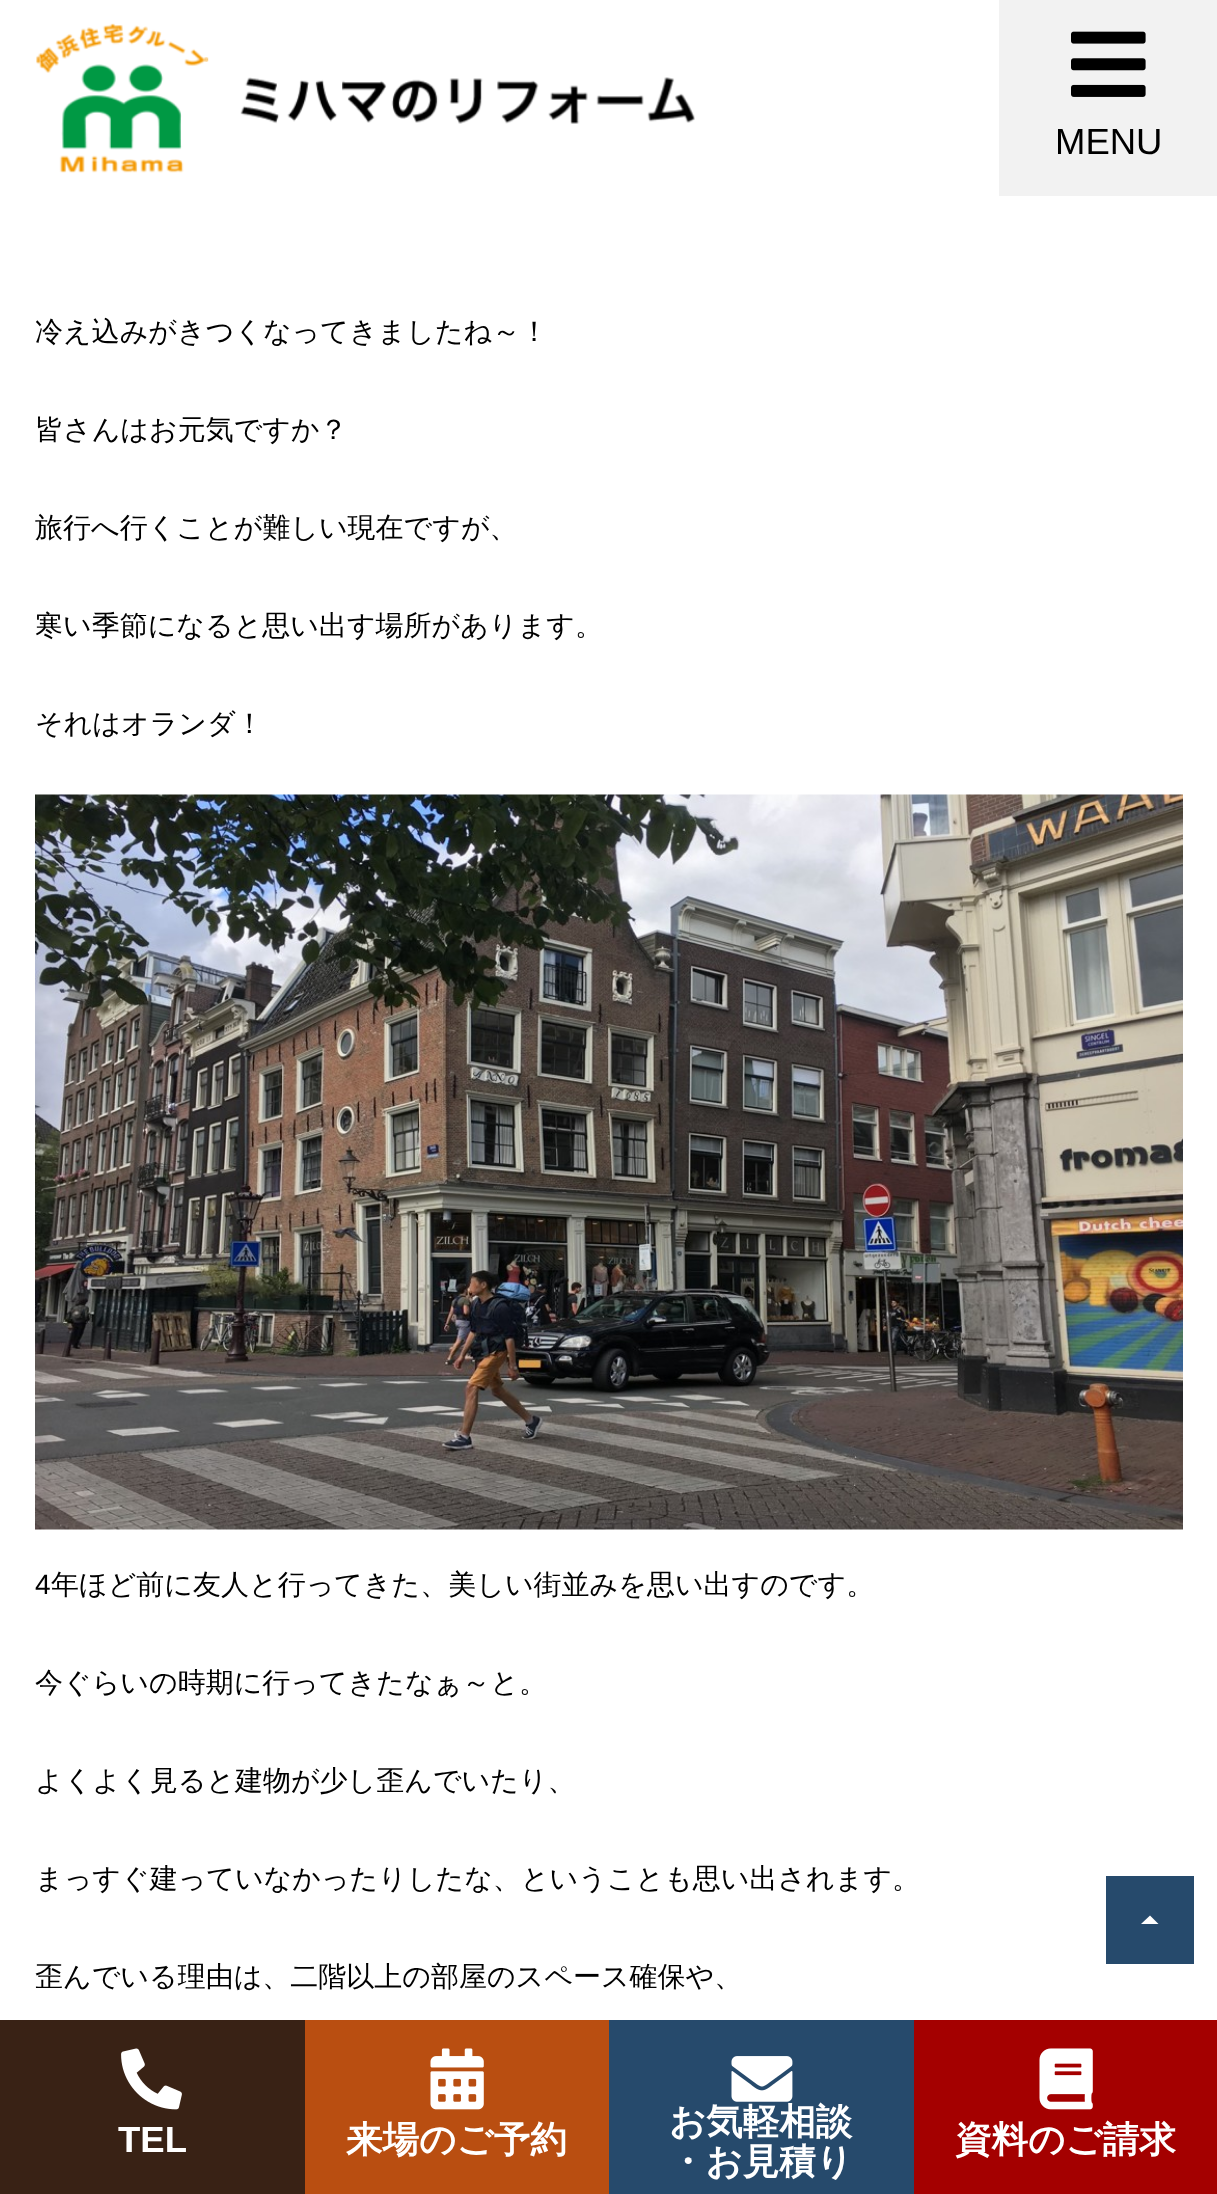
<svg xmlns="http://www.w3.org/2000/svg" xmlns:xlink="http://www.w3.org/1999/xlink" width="1217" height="2194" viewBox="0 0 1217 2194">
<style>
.cls-1{font:36.5px Liberation Sans;fill:#000000}
.cls-2{font:500 28px WenQuanYi Zen Hei;fill:#000000}
.cls-3{font:28px Liberation Sans;fill:#000000}
.cls-4{font:bold 36.5px Liberation Sans;fill:#ffffff}
.cls-5{font:bold 36.5px WenQuanYi Zen Hei;fill:#ffffff}
</style>
<rect width="100%" height="100%" fill="#ffffff"/>
<image xlink:href="image0.png" x="36" y="23" width="659" height="150"/>
<rect fill="#f2f2f2" x="999" y="0" width="218" height="196"/>
<image xlink:href="image1.png" x="1071" y="31" width="75" height="66"/>
<image xlink:href="image2.png" x="35" y="794" width="1148" height="736"/>
<rect fill="#264a6c" x="1106" y="1876" width="88" height="88"/>
<path fill="#ffffff" d="M1158.5 1924H1141L1150 1915.5Z"/>
<rect fill="#392215" x="0" y="2020" width="305" height="174"/>
<image xlink:href="image3.png" x="121" y="2048" width="61" height="62"/>
<rect fill="#b94e11" x="305" y="2020" width="304" height="174"/>
<image xlink:href="image4.png" x="430" y="2048" width="54" height="62"/>
<rect fill="#264a6c" x="609" y="2020" width="305" height="174"/>
<image xlink:href="image5.png" x="731" y="2056" width="62" height="46"/>
<rect fill="#a40000" x="914" y="2020" width="303" height="174"/>
<image xlink:href="image6.png" x="1039" y="2048" width="54" height="62"/>
<text class="cls-1" x="1055" y="154">MENU</text>
<text class="cls-2" x="35" y="341">冷え込みがきつくなってきましたね～！</text>
<text class="cls-2" x="35" y="439">皆さんはお元気ですか？</text>
<text class="cls-2" x="35" y="537">旅行へ行くことが難しい現在ですが、</text>
<text class="cls-2" x="35" y="635">寒い季節になると思い出す場所があります。</text>
<text class="cls-2" x="35" y="733">それはオランダ！</text>
<text class="cls-3" x="35" y="1594">4</text>
<text class="cls-2" x="51" y="1594">年ほど前に友人と行ってきた、美しい街並みを思い出すのです。</text>
<text class="cls-2" x="35" y="1692">今ぐらいの時期に行ってきたなぁ～と。</text>
<text class="cls-2" x="35" y="1790">よくよく見ると建物が少し歪んでいたり、</text>
<text class="cls-2" x="35" y="1888">まっすぐ建っていなかったりしたな、ということも思い出されます。</text>
<text class="cls-2" x="35" y="1986">歪んでいる理由は、二階以上の部屋のスペース確保や、</text>
<text class="cls-4" x="118" y="2152">TEL</text>
<text class="cls-5" x="346" y="2152">来場のご予約</text>
<text class="cls-5"><tspan x="669" y="2134">お気軽相談</tspan><tspan x="669" y="2174">・お見積り</tspan></text>
<text class="cls-5" x="955" y="2152">資料のご請求</text>
</svg>
